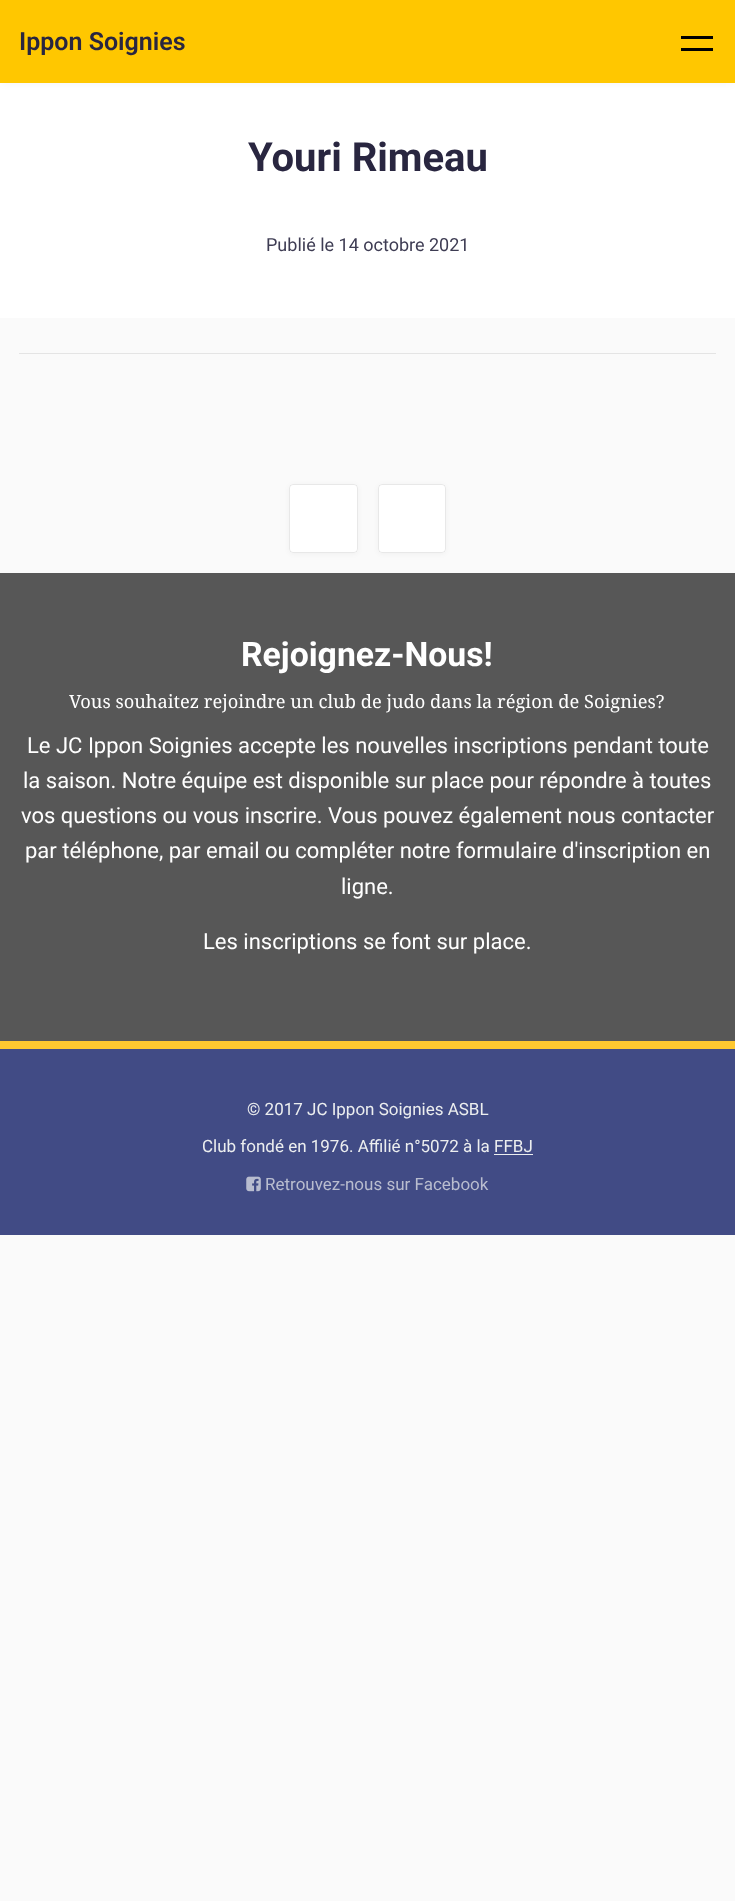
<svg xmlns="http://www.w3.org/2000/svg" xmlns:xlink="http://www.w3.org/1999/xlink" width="735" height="1901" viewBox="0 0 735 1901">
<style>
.cls-1{font:600 25px Roboto;fill:#292640}
.cls-2{font:bold 40px Roboto;fill:#292640}
.cls-3{font:18px Roboto;fill:#3e3c53}
.cls-4{font:bold 33.75px Roboto;fill:#ffffff}
.cls-5{font:18.3px Noto Serif;fill:#ffffff}
.cls-6{font:22px Roboto;fill:#ffffff}
.cls-7{font:17px Roboto;fill:#eceeef}
.cls-8{font:17px Roboto;fill:#b9bdcf}
</style>
<rect width="100%" height="100%" fill="#fafafa"/>
<rect fill="#ffffff" x="0" y="83" width="735" height="235"/>
<rect fill="#000000" fill-opacity="0.05" filter="blur(4.5px)" x="3" y="5" width="730" height="78"/>
<rect fill="#ffc700" x="0" y="0" width="735" height="83"/>
<rect fill="#000000" x="681" y="36" width="32" height="3"/>
<rect fill="#000000" x="681" y="48" width="32" height="3"/>
<rect fill="#e4e4e4" x="19" y="353" width="697" height="1"/>
<rect fill="#000000" fill-opacity="0.04" filter="blur(2.5px)" x="289" y="485" width="69" height="69" rx="4"/>
<rect fill="#ffffff" x="289" y="484" width="69" height="69" rx="4"/>
<rect fill="none" stroke="#000000" stroke-opacity="0.09" x="289.5" y="484.5" width="68" height="68" rx="3.5"/>
<rect fill="#000000" fill-opacity="0.04" filter="blur(2.5px)" x="378" y="485" width="68" height="69" rx="4"/>
<rect fill="#ffffff" x="378" y="484" width="68" height="69" rx="4"/>
<rect fill="none" stroke="#000000" stroke-opacity="0.09" x="378.5" y="484.5" width="67" height="68" rx="3.5"/>
<rect fill="#575757" x="0" y="573" width="735" height="468"/>
<rect fill="#fec830" x="0" y="1041" width="735" height="8"/>
<rect fill="#414b85" x="0" y="1049" width="735" height="186"/>
<rect fill="#eceeef" x="494" y="1154" width="39" height="1"/>
<image xlink:href="image0.png" x="246" y="1176" width="15" height="16"/>
<text class="cls-1" x="19" y="50">Ippon Soignies</text>
<text class="cls-2" x="248" y="171">Youri Rimeau</text>
<text class="cls-3" x="266" y="251">Publié le 14 octobre 2021</text>
<text class="cls-4" x="241" y="666">Rejoignez-Nous!</text>
<text class="cls-5" x="69" y="708">Vous souhaitez rejoindre un club de judo dans la région de Soignies?</text>
<text class="cls-6" x="27" y="753">Le JC Ippon Soignies accepte les nouvelles inscriptions pendant toute</text>
<text class="cls-6" x="23" y="788">la saison. Notre équipe est disponible sur place pour répondre à toutes</text>
<text class="cls-6" x="21" y="823">vos questions ou vous inscrire. Vous pouvez également nous contacter</text>
<text class="cls-6" x="25" y="858">par téléphone, par email ou compléter notre formulaire d'inscription en</text>
<text class="cls-6" x="341" y="894">ligne.</text>
<text class="cls-6" x="203" y="949">Les inscriptions se font sur place.</text>
<text class="cls-7" x="247" y="1115">© 2017 JC Ippon Soignies ASBL</text>
<text class="cls-7" x="202" y="1152">Club fondé en 1976. Affilié n°5072 à la FFBJ</text>
<text class="cls-8" x="265" y="1190">Retrouvez-nous sur Facebook</text>
</svg>
